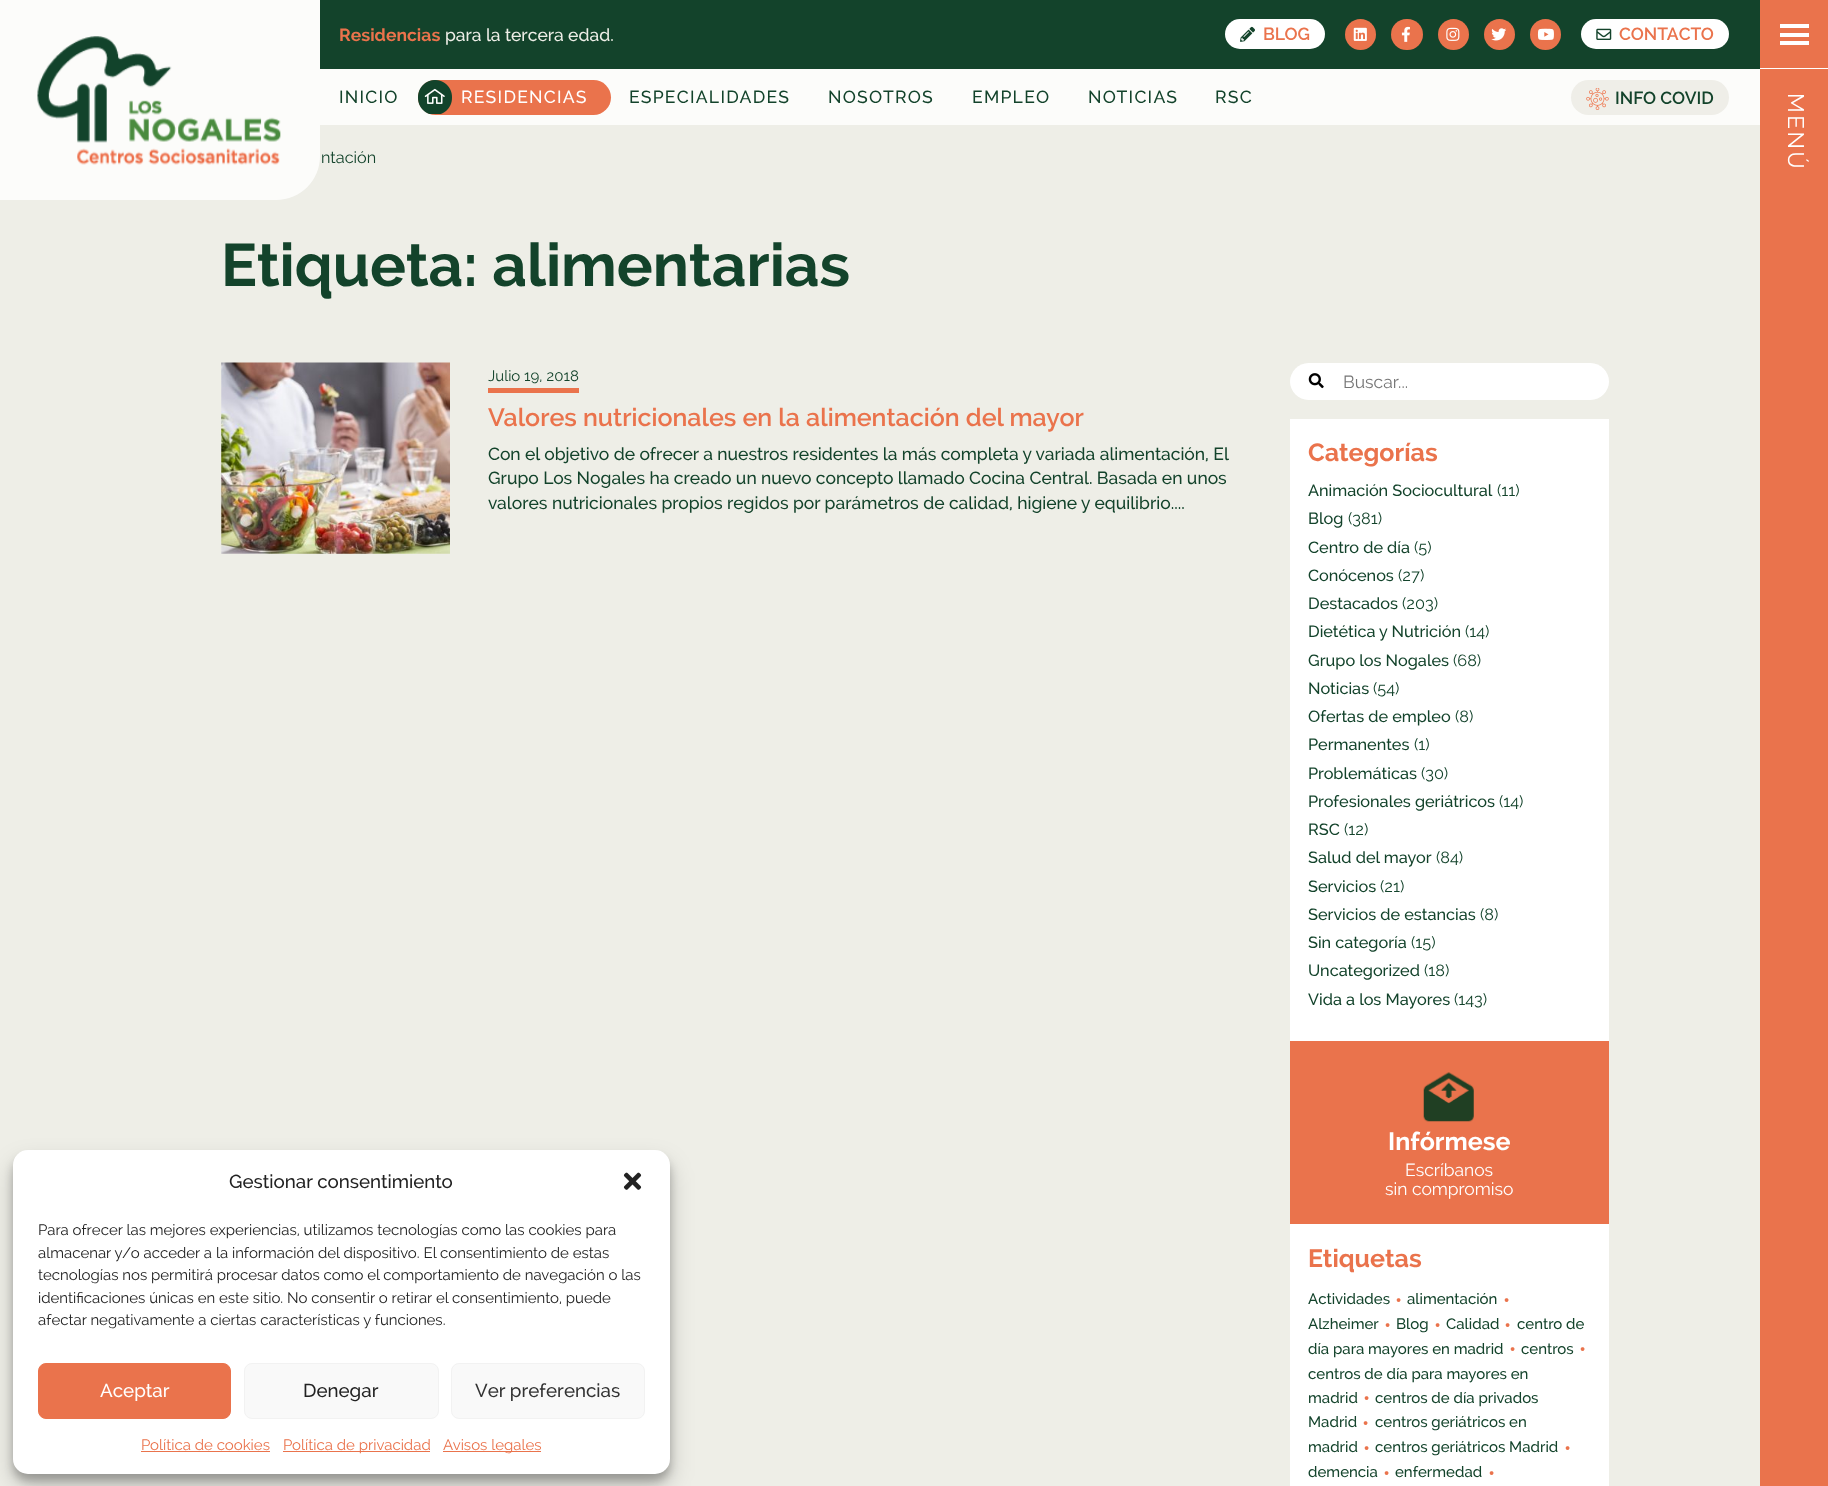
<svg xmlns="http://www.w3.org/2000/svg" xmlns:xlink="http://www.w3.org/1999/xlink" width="1828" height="1486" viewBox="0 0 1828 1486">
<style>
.cls-1{font:bold 17.5px Raleway;fill:#ea734c}
.cls-2{font:500 17.5px Raleway;fill:#eeeee7}
.cls-3{font:600 17.5px Raleway;fill:#ea734c}
.cls-4{font:500 17.5px Raleway;letter-spacing:1.25px;fill:#13432b}
.cls-5{font:500 17.5px Raleway;letter-spacing:1.25px;fill:#ffffff}
.cls-6{font:600 17.5px Raleway;fill:#13432b}
.cls-7{font:22.5px Raleway;letter-spacing:2.5px;fill:#ffffff}
.cls-8{font:16.25px Raleway;fill:#13432b}
.cls-9{font:bold 60px Raleway;fill:#13432b}
.cls-10{font:15px Raleway;fill:#13432b}
.cls-11{font:600 25px Raleway;fill:#ea734c}
.cls-12{font:500 17.5px Raleway;fill:#13432b}
.cls-13{font:17.5px Raleway;fill:#757575}
.cls-14{font:bold 25px Raleway;fill:#ea734c}
.cls-15{font:500 16.25px Raleway;fill:#13432b}
.cls-16{font:bold 25px Raleway;fill:#ffffff}
.cls-17{font:17.5px Raleway;fill:#ffffff}
.cls-18{font:500 15px Raleway;fill:#13432b}
.cls-19{font:500 20px Raleway;fill:#ea734c}
.cls-20{font:500 18.75px Raleway;fill:#222222}
.cls-21{font:15px Raleway;fill:#222222}
.cls-22{font:500 18.75px Raleway;fill:#ffffff}
.cls-23{font:500 18.75px Raleway;fill:#333333}
.cls-24{font:15px Raleway;fill:#ea734c}
</style>
<rect width="100%" height="100%" fill="#eeeee7"/>
<path fill="#ffffff" fill-opacity="0.8" d="M0 0H320V156C320 180.5 300.5 200 276 200H0Z"/>
<image xlink:href="image0.png" x="37" y="36" width="244" height="129"/>
<rect fill="#fcfcfa" x="320" y="69" width="1440" height="56"/>
<rect fill="#13432b" x="320" y="0" width="1440" height="69"/>
<rect fill="#ffffff" x="1225" y="19" width="100" height="30" rx="15"/>
<image xlink:href="image1.png" x="1240" y="26" width="15" height="16"/>
<circle fill="#ea734c" cx="1360.5" cy="34.5" r="15.5"/>
<image xlink:href="image2.png" x="1353" y="27" width="14" height="14"/>
<rect fill="#ea734c" x="1391" y="19" width="32" height="31" rx="15.5"/>
<image xlink:href="image3.png" x="1401" y="26" width="9" height="16"/>
<circle fill="#ea734c" cx="1453.5" cy="34.5" r="15.5"/>
<image xlink:href="image4.png" x="1446" y="27" width="14" height="14"/>
<circle fill="#ea734c" cx="1499.5" cy="34.5" r="15.5"/>
<image xlink:href="image5.png" x="1491" y="28" width="16" height="13"/>
<circle fill="#ea734c" cx="1545.5" cy="34.5" r="15.5"/>
<image xlink:href="image6.png" x="1537" y="28" width="17" height="12"/>
<rect fill="#ffffff" x="1581" y="19" width="148" height="30" rx="15"/>
<image xlink:href="image7.png" x="1596" y="28" width="16" height="12"/>
<rect fill="#ea734c" x="418" y="80" width="193" height="35" rx="17.5"/>
<image xlink:href="image8.png" x="418" y="80" width="34" height="34"/>
<rect fill="#efeee8" x="1571" y="80" width="158" height="35" rx="17.5"/>
<image xlink:href="image9.png" x="1586" y="88" width="23" height="22"/>
<rect fill="#ea734c" x="1760" y="0" width="68" height="1486"/>
<rect fill="#ffffff" x="1760" y="68" width="68" height="1"/>
<rect fill="#ffffff" x="1780" y="33" width="29" height="4"/>
<rect fill="#ffffff" x="1780" y="24" width="29" height="4"/>
<rect fill="#ffffff" x="1780" y="41" width="29" height="4"/>
<image xlink:href="image10.png" x="221" y="362" width="229" height="192"/>
<rect fill="#ea734c" x="488" y="388" width="91" height="5"/>
<path fill="#ffffff" d="M1308.5 363H1344V400H1308.5C1298.5 400 1290 391.5 1290 381.5C1290 371.5 1298.5 363 1308.5 363Z"/>
<image xlink:href="image11.png" x="1308" y="373" width="16" height="16"/>
<path fill="#ffffff" d="M1344 363H1590.5C1600.5 363 1609 371.5 1609 381.5C1609 391.5 1600.5 400 1590.5 400H1344Z"/>
<rect fill="#ffffff" x="1290" y="419" width="319" height="622"/>
<rect fill="#ea734c" x="1290" y="1041" width="319" height="183"/>
<image xlink:href="image12.png" x="1423" y="1072" width="51" height="50"/>
<rect fill="#ffffff" x="1290" y="1224" width="319" height="262"/>
<rect fill="#000000" fill-opacity="0.23" filter="blur(4px)" x="13" y="1158" width="657" height="323" rx="15"/>
<rect fill="#000000" fill-opacity="0.19" filter="blur(12.5px)" x="13" y="1163" width="657" height="323" rx="15"/>
<rect fill="#ffffff" x="13" y="1150" width="657" height="324" rx="15"/>
<image xlink:href="image13.png" x="623" y="1172" width="19" height="18"/>
<rect fill="#ea734c" stroke="#ea734c" x="38.5" y="1363.5" width="192" height="55" rx="7.5"/>
<rect fill="#f9f9f9" stroke="#f2f2f2" x="244.5" y="1363.5" width="194" height="55" rx="7.5"/>
<rect fill="#f9f9f9" stroke="#f2f2f2" x="451.5" y="1363.5" width="193" height="55" rx="7.5"/>
<rect fill="#ea734c" x="141" y="1451" width="129" height="1"/>
<rect fill="#ea734c" x="283" y="1451" width="147" height="1"/>
<rect fill="#ea734c" x="443" y="1451" width="98" height="1"/>
<text class="cls-1" x="339" y="41">Residencias</text>
<text class="cls-2" x="445" y="41">para la tercera edad.</text>
<text class="cls-3" x="1263" y="40">BLOG</text>
<text class="cls-3" x="1619" y="40">CONTACTO</text>
<text class="cls-4" x="339" y="103">INICIO</text>
<text class="cls-5" x="461" y="103">RESIDENCIAS</text>
<text class="cls-4" x="629" y="103">ESPECIALIDADES</text>
<text class="cls-4" x="828" y="103">NOSOTROS</text>
<text class="cls-4" x="972" y="103">EMPLEO</text>
<text class="cls-4" x="1088" y="103">NOTICIAS</text>
<text class="cls-4" x="1215" y="103">RSC</text>
<text class="cls-6" x="1615" y="104">INFO COVID</text>
<text class="cls-7" x="1788" y="93" transform="rotate(90 1788 93)">MENÚ</text>
<text class="cls-8" x="321" y="163">ntación</text>
<text class="cls-9" x="221" y="286">Etiqueta: alimentarias</text>
<text class="cls-10" x="488" y="381">Julio 19, 2018</text>
<text class="cls-11" x="488" y="426">Valores nutricionales en la alimentación del mayor</text>
<text class="cls-12"><tspan x="488" y="460">Con el objetivo de ofrecer a nuestros residentes la más completa y variada alimentación, El</tspan><tspan x="488" y="484">Grupo Los Nogales ha creado un nuevo concepto llamado Cocina Central. Basada en unos</tspan><tspan x="488" y="509">valores nutricionales propios regidos por parámetros de calidad, higiene y equilibrio....</tspan></text>
<text class="cls-13" x="1343" y="388">Buscar...</text>
<text class="cls-14" x="1308" y="461">Categorías</text>
<text class="cls-15" x="1308" y="496">Animación Sociocultural</text>
<text class="cls-8" x="1497" y="496">(11)</text>
<text class="cls-15" x="1308" y="524">Blog</text>
<text class="cls-8" x="1348" y="524">(381)</text>
<text class="cls-15" x="1308" y="553">Centro de día</text>
<text class="cls-8" x="1414" y="553">(5)</text>
<text class="cls-15" x="1308" y="581">Conócenos</text>
<text class="cls-8" x="1398" y="581">(27)</text>
<text class="cls-15" x="1308" y="609">Destacados</text>
<text class="cls-8" x="1402" y="609">(203)</text>
<text class="cls-15" x="1308" y="637">Dietética y Nutrición</text>
<text class="cls-8" x="1465" y="637">(14)</text>
<text class="cls-15" x="1308" y="666">Grupo los Nogales</text>
<text class="cls-8" x="1453" y="666">(68)</text>
<text class="cls-15" x="1308" y="694">Noticias</text>
<text class="cls-8" x="1373" y="694">(54)</text>
<text class="cls-15" x="1308" y="722">Ofertas de empleo</text>
<text class="cls-8" x="1455" y="722">(8)</text>
<text class="cls-15" x="1308" y="750">Permanentes</text>
<text class="cls-8" x="1414" y="750">(1)</text>
<text class="cls-15" x="1308" y="779">Problemáticas</text>
<text class="cls-8" x="1421" y="779">(30)</text>
<text class="cls-15" x="1308" y="807">Profesionales geriátricos</text>
<text class="cls-8" x="1499" y="807">(14)</text>
<text class="cls-15" x="1308" y="835">RSC</text>
<text class="cls-8" x="1344" y="835">(12)</text>
<text class="cls-15" x="1308" y="863">Salud del mayor</text>
<text class="cls-8" x="1436" y="863">(84)</text>
<text class="cls-15" x="1308" y="892">Servicios</text>
<text class="cls-8" x="1380" y="892">(21)</text>
<text class="cls-15" x="1308" y="920">Servicios de estancias</text>
<text class="cls-8" x="1480" y="920">(8)</text>
<text class="cls-15" x="1308" y="948">Sin categoría</text>
<text class="cls-8" x="1411" y="948">(15)</text>
<text class="cls-15" x="1308" y="976">Uncategorized</text>
<text class="cls-8" x="1424" y="976">(18)</text>
<text class="cls-15" x="1308" y="1005">Vida a los Mayores</text>
<text class="cls-8" x="1454" y="1005">(143)</text>
<text class="cls-16" x="1388" y="1150">Infórmese</text>
<text class="cls-17" x="1405" y="1176">Escríbanos</text>
<text class="cls-17" x="1385" y="1195">sin compromiso</text>
<text class="cls-14" x="1308" y="1267">Etiquetas</text>
<text class="cls-18" x="1308" y="1304">Actividades</text>
<text class="cls-19" x="1395" y="1307">•</text>
<text class="cls-18" x="1407" y="1304">alimentación</text>
<text class="cls-19" x="1503" y="1307">•</text>
<text class="cls-18" x="1308" y="1329">Alzheimer</text>
<text class="cls-19" x="1384" y="1332">•</text>
<text class="cls-18" x="1396" y="1329">Blog</text>
<text class="cls-19" x="1434" y="1332">•</text>
<text class="cls-18" x="1446" y="1329">Calidad</text>
<text class="cls-19" x="1504" y="1332">•</text>
<text class="cls-18" x="1517" y="1329">centro de</text>
<text class="cls-18" x="1308" y="1354">día para mayores en madrid</text>
<text class="cls-19" x="1509" y="1356">•</text>
<text class="cls-18" x="1521" y="1354">centros</text>
<text class="cls-19" x="1579" y="1356">•</text>
<text class="cls-18"><tspan x="1308" y="1379">centros de día para mayores en</tspan><tspan x="1308" y="1403">madrid</tspan></text>
<text class="cls-19" x="1363" y="1405">•</text>
<text class="cls-18" x="1375" y="1403">centros de día privados</text>
<text class="cls-18" x="1308" y="1427">Madrid</text>
<text class="cls-19" x="1362" y="1430">•</text>
<text class="cls-18" x="1375" y="1427">centros geriátricos en</text>
<text class="cls-18" x="1308" y="1452">madrid</text>
<text class="cls-19" x="1363" y="1455">•</text>
<text class="cls-18" x="1375" y="1452">centros geriátricos Madrid</text>
<text class="cls-19" x="1564" y="1455">•</text>
<text class="cls-18" x="1308" y="1477">demencia</text>
<text class="cls-19" x="1383" y="1480">•</text>
<text class="cls-18" x="1395" y="1477">enfermedad</text>
<text class="cls-19" x="1488" y="1480">•</text>
<text class="cls-20" x="229" y="1188">Gestionar consentimiento</text>
<text class="cls-21"><tspan x="38" y="1235">Para ofrecer las mejores experiencias, utilizamos tecnologías como las cookies para</tspan><tspan x="38" y="1258">almacenar y/o acceder a la información del dispositivo. El consentimiento de estas</tspan><tspan x="38" y="1280">tecnologías nos permitirá procesar datos como el comportamiento de navegación o las</tspan><tspan x="38" y="1303">identificaciones únicas en este sitio. No consentir o retirar el consentimiento, puede</tspan><tspan x="38" y="1325">afectar negativamente a ciertas características y funciones.</tspan></text>
<text class="cls-22" x="100" y="1397">Aceptar</text>
<text class="cls-20" x="303" y="1397">Denegar</text>
<text class="cls-23" x="475" y="1397">Ver preferencias</text>
<text class="cls-24" x="141" y="1450">Política de cookies</text>
<text class="cls-24" x="283" y="1450">Política de privacidad</text>
<text class="cls-24" x="443" y="1450">Avisos legales</text>
</svg>
